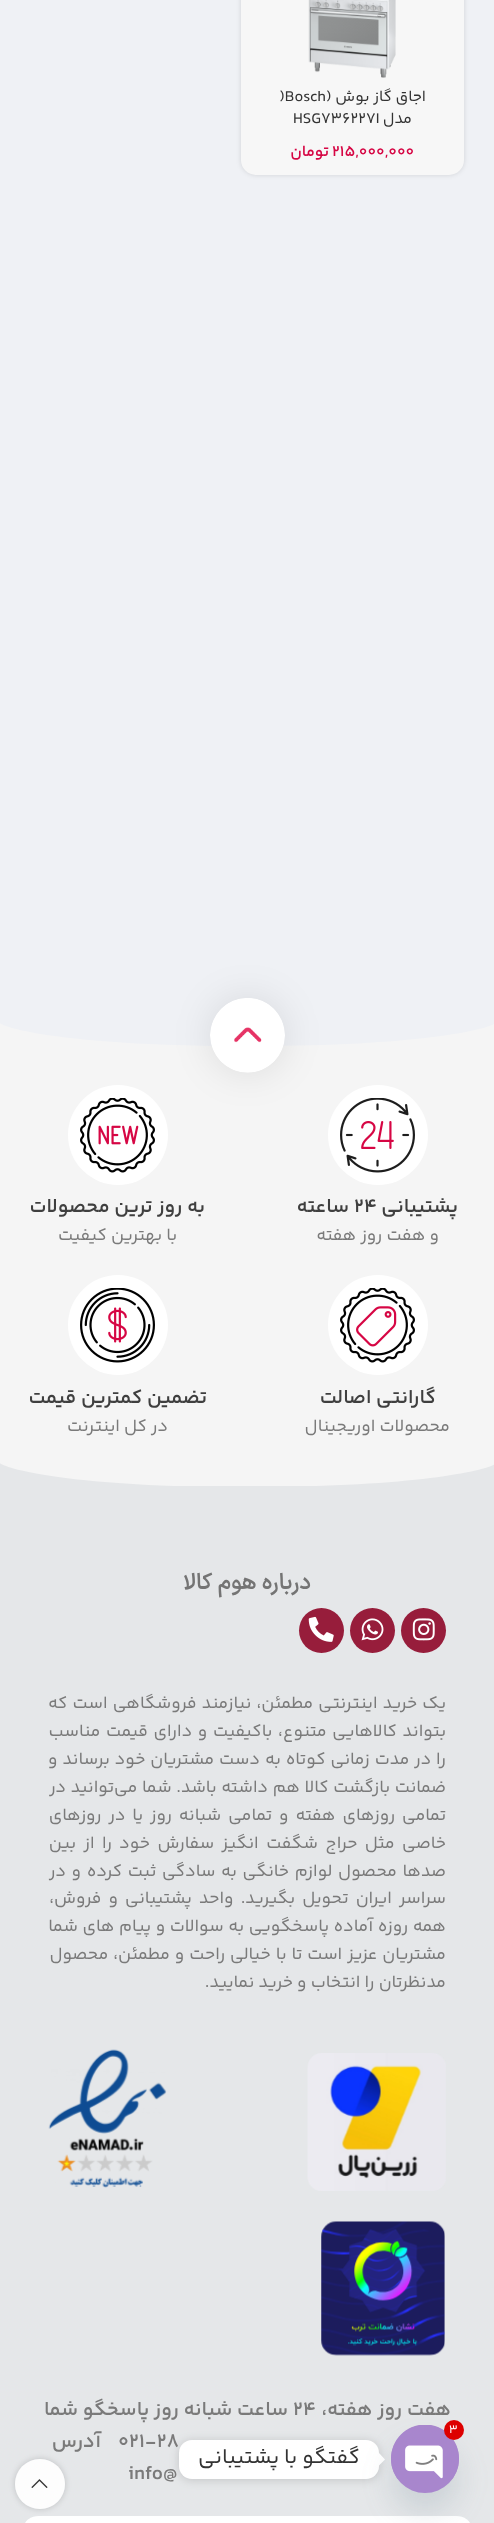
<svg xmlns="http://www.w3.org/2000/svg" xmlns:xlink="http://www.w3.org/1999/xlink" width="494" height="2523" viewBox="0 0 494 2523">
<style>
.cls-1{font:15.75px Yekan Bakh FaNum;direction:rtl;fill:#333333}
.cls-2{font:15.75px Yekan Bakh FaNum;fill:#333333}
.cls-3{font:600 15.75px Yekan Bakh FaNum;fill:#d60644}
.cls-4{font:600 15.75px Yekan Bakh FaNum;direction:rtl;fill:#d60644}
.cls-5{font:600 20px Yekan Bakh FaNum;direction:rtl;fill:#3f3f3f}
.cls-6{font:600 20px Yekan Bakh FaNum;fill:#3f3f3f}
.cls-7{font:17.5px Yekan Bakh FaNum;direction:rtl;fill:#7a7a7a}
.cls-8{font:600 22.5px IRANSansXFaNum;direction:rtl;fill:#747474}
.cls-9{font:600 20px Yekan Bakh FaNum;direction:rtl;fill:#7a7a7a}
.cls-10{font:600 20px Yekan Bakh FaNum;fill:#7a7a7a}
.cls-11{font:12px Yekan Bakh FaNum;fill:#ffffff}
.cls-12{font:21.25px Yekan Bakh FaNum;direction:rtl;fill:#333333}
</style>
<defs>
<clipPath id="clip1"><path d="M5 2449H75V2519H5ZM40 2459C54 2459 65 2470 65 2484C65 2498 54 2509 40 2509C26 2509 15 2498 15 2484C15 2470 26 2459 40 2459Z" clip-rule="evenodd"/></clipPath>
</defs>
<rect width="100%" height="100%" fill="#eff1f5"/>
<rect fill="#000000" fill-opacity="0.12" filter="blur(2.5px)" x="241" y="-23" width="223" height="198" rx="15"/>
<rect fill="#f7f7f7" x="241" y="-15" width="223" height="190" rx="15"/>
<image xlink:href="image0.png" x="308" y="0" width="88" height="78"/>
<rect fill="#f5f5f5" x="0" y="1023" width="494" height="463"/>
<path fill="#eff1f5" d="M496 1022V1021H-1V1022C0 1027 62 1046 247 1046C433 1046 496 1027 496 1022Z"/>
<rect fill="#000000" fill-opacity="0.1" filter="blur(19px)" x="210" y="998" width="75" height="75" rx="37.5"/>
<image xlink:href="image1.png" x="210" y="998" width="75" height="75"/>
<circle fill="#ffffff" cx="378" cy="1135" r="50"/>
<image xlink:href="image2.png" x="340" y="1098" width="75" height="75"/>
<circle fill="#ffffff" cx="118" cy="1135" r="50"/>
<image xlink:href="image3.png" x="80" y="1098" width="75" height="75"/>
<circle fill="#ffffff" cx="378" cy="1325" r="50"/>
<image xlink:href="image4.png" x="340" y="1288" width="75" height="75"/>
<circle fill="#ffffff" cx="118" cy="1325" r="50"/>
<image xlink:href="image5.png" x="80" y="1288" width="75" height="75"/>
<path fill="#e5e7e9" d="M247 1487C62 1487 0 1467-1 1462V1488H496V1463C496 1467 433 1487 247 1487Z"/>
<rect fill="#e5e7e9" x="0" y="1486" width="494" height="1037"/>
<circle fill="#971d3b" cx="423.5" cy="1630.5" r="22.5"/>
<image xlink:href="image6.png" x="412" y="1618" width="23" height="23"/>
<circle fill="#971d3b" cx="372.5" cy="1630.5" r="22.5"/>
<image xlink:href="image7.png" x="361" y="1618" width="23" height="23"/>
<circle fill="#971d3b" cx="321.5" cy="1630.5" r="22.5"/>
<image xlink:href="image8.png" x="308" y="1616" width="26" height="26"/>
<image xlink:href="image9.png" x="307" y="2053" width="139" height="138"/>
<image xlink:href="image10.png" x="48" y="2049" width="119" height="139"/>
<image xlink:href="image11.png" x="321" y="2221" width="124" height="135"/>
<rect fill="#ffffff" x="24" y="2516" width="447" height="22" rx="15"/>
<rect fill="#000000" fill-opacity="0.15" filter="blur(5px)" x="179" y="2441" width="200" height="39" rx="13"/>
<rect fill="#ffffff" x="179" y="2440" width="200" height="39" rx="13"/>
<path fill="#ffffff" d="M379 2465.5V2453L385 2459.5Z"/>
<rect fill="#49687e" fill-opacity="0.16" filter="blur(15px)" x="391" y="2445" width="68" height="68" rx="34"/>
<circle fill="#a886cd" cx="425" cy="2459" r="34"/>
<image xlink:href="image12.png" x="391" y="2425" width="68" height="54"/>
<circle fill="#dd0000" cx="454" cy="2430" r="10"/>
<g clip-path="url(#clip1)">
<rect fill="#000000" fill-opacity="0.17" filter="blur(3px)" x="15" y="2459" width="50" height="50" rx="25"/>
</g>
<circle fill="#ffffff" fill-opacity="0.9" cx="40" cy="2484" r="25"/>
<image xlink:href="image13.png" x="31" y="2479" width="17" height="9"/>
<text class="cls-1" x="426" y="101">اجاق گاز بوش (</text>
<text class="cls-2" x="279" y="101">)Bosch</text>
<text class="cls-1" x="412" y="123">مدل</text>
<text class="cls-2" x="293" y="123">HSG736227I</text>
<text class="cls-3" x="332" y="156">215,000,000</text>
<text class="cls-4" x="329" y="156">تومان</text>
<text class="cls-5" x="458" y="1212">پشتیبانی</text>
<text class="cls-6" x="354" y="1212">۲۴</text>
<text class="cls-5" x="349" y="1212">ساعته</text>
<text class="cls-7" x="439" y="1240">و هفت روز هفته</text>
<text class="cls-5" x="205" y="1212">به روز ترین محصولات</text>
<text class="cls-7" x="177" y="1240">با بهترین کیفیت</text>
<text class="cls-5" x="436" y="1403">گارانتی اصالت</text>
<text class="cls-7" x="450" y="1431">محصولات اوریجینال</text>
<text class="cls-5" x="207" y="1403">تضمین کمترین قیمت</text>
<text class="cls-7" x="168" y="1431">در کل اینترنت</text>
<text class="cls-8" x="311" y="1589">درباره هوم کالا</text>
<text class="cls-7"><tspan x="446" y="1708" word-spacing="1">یک خرید اینترنتی مطمئن، نیازمند فروشگاهی است که</tspan><tspan x="446" y="1736" word-spacing="1.5">بتواند کالاهایی متنوع، باکیفیت و دارای قیمت مناسب</tspan><tspan x="446" y="1764" word-spacing="0.75">را در مدت زمانی کوتاه به دست مشتریان خود برساند و</tspan><tspan x="446" y="1792" word-spacing="0.5">ضمانت بازگشت کالا هم داشته باشد. شما می‌توانید در</tspan><tspan x="446" y="1820" word-spacing="2.75">تمامی روزهای هفته و تمامی شبانه روز یا در روزهای</tspan><tspan x="446" y="1848" word-spacing="3.25">خاصی مثل حراج شگفت انگیز سفارش خود را از بین</tspan><tspan x="446" y="1876" word-spacing="1.5">صدها محصول لوازم خانگی به سادگی ثبت کرده و در</tspan><tspan x="446" y="1903" word-spacing="3">سراسر ایران تحویل بگیرید. واحد پشتیبانی و فروش،</tspan><tspan x="446" y="1931" word-spacing="0.4">همه روزه آماده پاسخگویی به سوالات و پیام های شما</tspan><tspan x="446" y="1959" word-spacing="0.75">مشتریان عزیز است تا با خیالی راحت و مطمئن، محصول</tspan><tspan x="446" y="1987">مدنظرتان را انتخاب و خرید نمایید.</tspan></text>
<text class="cls-9" x="451" y="2415">هفت روز هفته،</text>
<text class="cls-10" x="293" y="2415">24</text>
<text class="cls-9" x="288" y="2415">ساعت شبانه روز پاسخگو شما</text>
<text class="cls-10" x="118" y="2447">021-28</text>
<text class="cls-9" x="101" y="2447">آدرس</text>
<text class="cls-10" x="128" y="2479">info@</text>
<text class="cls-11" x="449" y="2433">3</text>
<text class="cls-12" x="360" y="2463">گفتگو با پشتیبانی</text>
</svg>
